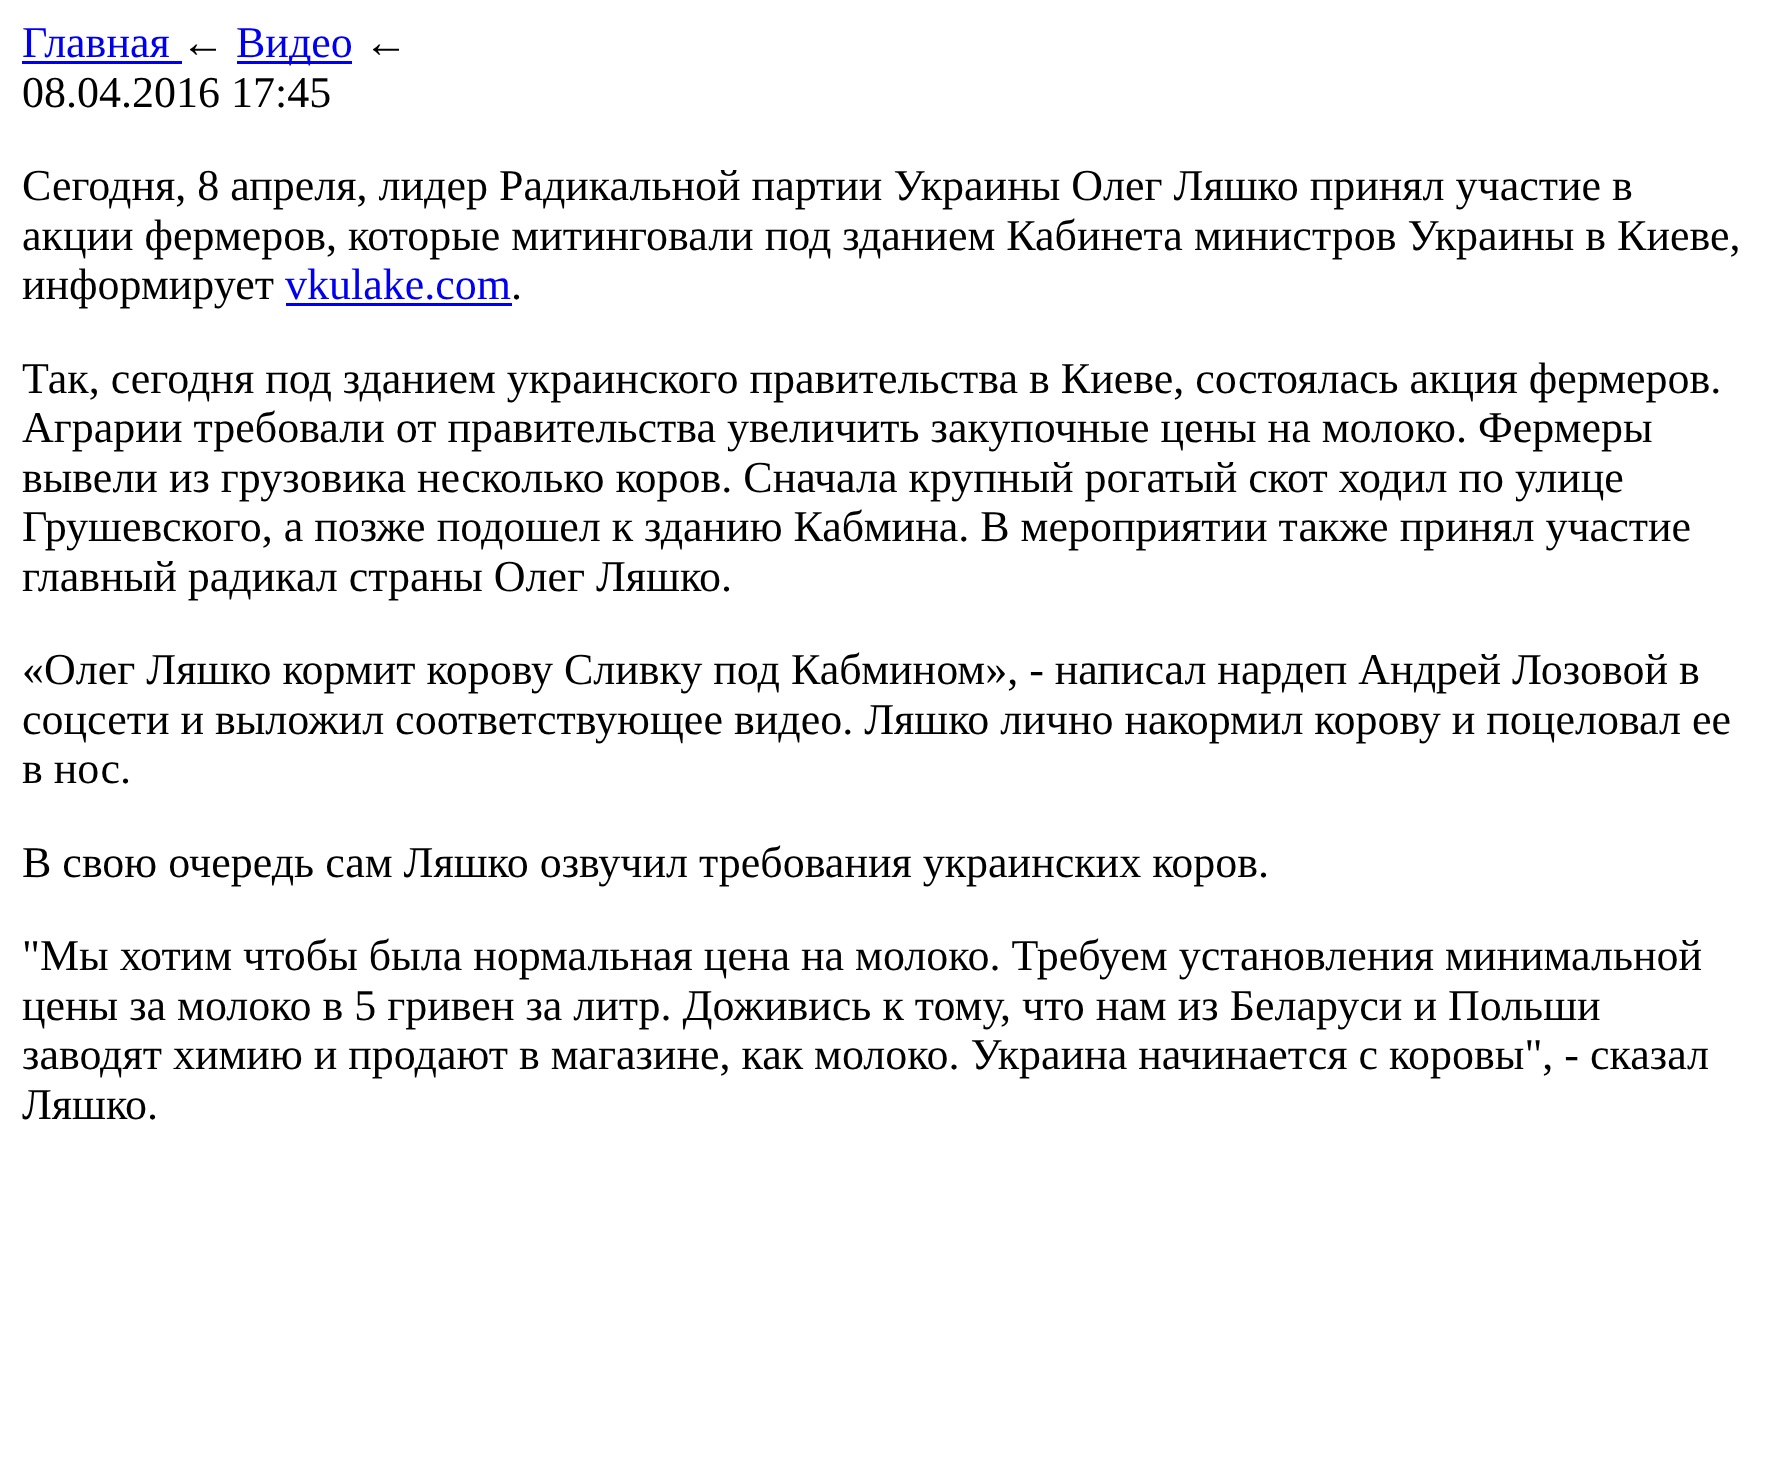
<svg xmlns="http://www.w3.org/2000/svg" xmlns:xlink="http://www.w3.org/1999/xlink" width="1771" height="1471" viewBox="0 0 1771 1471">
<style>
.cls-1{font:44px Liberation Serif;fill:#0000ee}
.cls-2{font:44px Liberation Serif;fill:#000000}
</style>
<rect width="100%" height="100%" fill="#ffffff"/>
<rect fill="#0000ee" x="22" y="61" width="160" height="3"/>
<rect fill="#0000ee" x="237" y="61" width="115" height="3"/>
<rect fill="#0000ee" x="286" y="303" width="226" height="3"/>
<text class="cls-1" x="22" y="57">Главная</text>
<text class="cls-2" x="181" y="57">←</text>
<text class="cls-1" x="236" y="57">Видео</text>
<text class="cls-2" x="364" y="57">←</text>
<text class="cls-2" x="22" y="107">08.04.2016 17:45</text>
<text class="cls-2"><tspan x="22" y="200">Сегодня, 8 апреля, лидер Радикальной партии Украины Олег Ляшко принял участие в</tspan><tspan x="22" y="250">акции фермеров, которые митинговали под зданием Кабинета министров Украины в Киеве,</tspan><tspan x="22" y="299">информирует</tspan></text>
<text class="cls-1" x="285" y="299">vkulake.com</text>
<text class="cls-2" x="511" y="299">.</text>
<text class="cls-2"><tspan x="22" y="393">Так, сегодня под зданием украинского правительства в Киеве, состоялась акция фермеров.</tspan><tspan x="22" y="442">Аграрии требовали от правительства увеличить закупочные цены на молоко. Фермеры</tspan><tspan x="22" y="492">вывели из грузовика несколько коров. Сначала крупный рогатый скот ходил по улице</tspan><tspan x="22" y="541">Грушевского, а позже подошел к зданию Кабмина. В мероприятии также принял участие</tspan><tspan x="22" y="591">главный радикал страны Олег Ляшко.</tspan></text>
<text class="cls-2"><tspan x="22" y="684">«Олег Ляшко кормит корову Сливку под Кабмином», - написал нардеп Андрей Лозовой в</tspan><tspan x="22" y="734">соцсети и выложил соответствующее видео. Ляшко лично накормил корову и поцеловал ее</tspan><tspan x="22" y="783">в нос.</tspan></text>
<text class="cls-2" x="22" y="877">В свою очередь сам Ляшко озвучил требования украинских коров.</text>
<text class="cls-2"><tspan x="22" y="970">"Мы хотим чтобы была нормальная цена на молоко. Требуем установления минимальной</tspan><tspan x="22" y="1020">цены за молоко в 5 гривен за литр. Доживись к тому, что нам из Беларуси и Польши</tspan><tspan x="22" y="1069">заводят химию и продают в магазине, как молоко. Украина начинается с коровы", - сказал</tspan><tspan x="22" y="1119">Ляшко.</tspan></text>
</svg>
